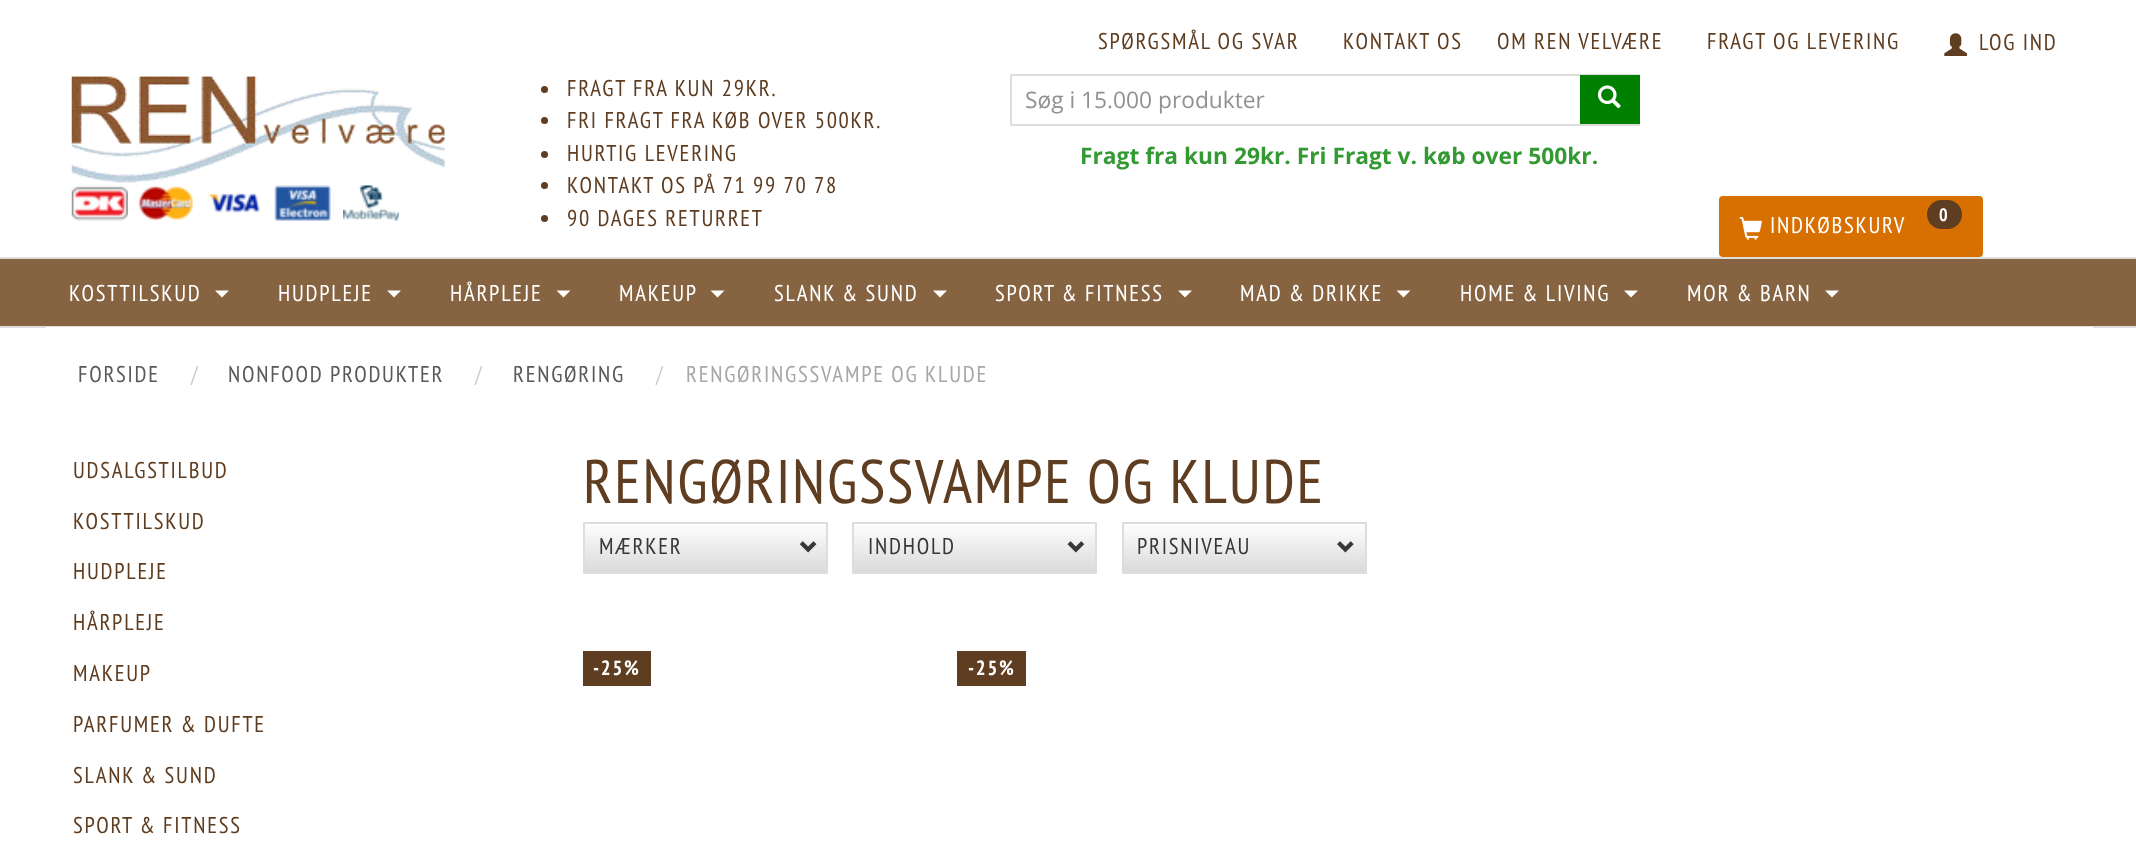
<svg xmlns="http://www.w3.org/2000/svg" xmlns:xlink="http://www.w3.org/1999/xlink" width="2136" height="865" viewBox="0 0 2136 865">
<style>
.cls-1{font:22.75px PT Sans Narrow;letter-spacing:1.75px;fill:#5f3d20}
.cls-2{font:22.75px Open Sans;fill:#919191}
.cls-3{font:bold 22.75px Open Sans;fill:#339933}
.cls-4{font:22.75px PT Sans Narrow;letter-spacing:1.75px;fill:#ffffff}
.cls-5{font:bold 18px PT Sans Narrow;letter-spacing:1.75px;fill:#ffffff}
.cls-6{font:22.75px PT Sans Narrow;letter-spacing:1.75px;fill:#595959}
.cls-7{font:22.75px PT Sans Narrow;letter-spacing:1.75px;fill:#cccccc}
.cls-8{font:22.75px PT Sans Narrow;letter-spacing:1.75px;fill:#a7a7a7}
.cls-9{font:61.5px PT Sans Narrow;letter-spacing:1.75px;fill:#5f3d20}
.cls-10{font:22.75px PT Sans Narrow;letter-spacing:1.75px;fill:#383838}
.cls-11{font:bold 20.5px PT Sans Narrow;letter-spacing:1.75px;fill:#ffffff}
</style>
<defs>
<linearGradient id="g1" gradientUnits="userSpaceOnUse" x1="705" y1="522" x2="705" y2="574"><stop offset="0" stop-color="#ffffff"/><stop offset="1" stop-color="#d9d9d9"/></linearGradient>
<linearGradient id="g2" gradientUnits="userSpaceOnUse" x1="975" y1="522" x2="975" y2="574"><stop offset="0" stop-color="#ffffff"/><stop offset="1" stop-color="#d9d9d9"/></linearGradient>
<linearGradient id="g3" gradientUnits="userSpaceOnUse" x1="1244" y1="522" x2="1244" y2="574"><stop offset="0" stop-color="#ffffff"/><stop offset="1" stop-color="#d9d9d9"/></linearGradient>
<clipPath id="clip1"><rect x="74" y="760" width="152" height="33"/></clipPath>
<clipPath id="clip2"><rect x="74" y="810" width="176" height="34"/></clipPath>
</defs>
<rect width="100%" height="100%" fill="#ffffff"/>
<image xlink:href="image0.png" x="1944" y="33" width="23" height="23"/>
<image xlink:href="image1.png" x="71" y="76" width="374" height="108"/>
<image xlink:href="image2.png" x="71" y="185" width="57" height="36"/>
<image xlink:href="image3.png" x="138" y="185" width="56" height="36"/>
<image xlink:href="image4.png" x="207" y="193" width="53" height="20"/>
<image xlink:href="image5.png" x="274" y="185" width="57" height="36"/>
<image xlink:href="image6.png" x="343" y="185" width="56" height="36"/>
<circle fill="#5f3d20" cx="544.5" cy="89.5" r="3.5"/>
<circle fill="#5f3d20" cx="544.5" cy="120.5" r="3.5"/>
<circle fill="#5f3d20" cx="544.5" cy="154.5" r="3.5"/>
<circle fill="#5f3d20" cx="544.5" cy="185.5" r="3.5"/>
<circle fill="#5f3d20" cx="544.5" cy="218.5" r="3.5"/>
<rect fill="none" stroke="#dddddd" stroke-width="2" x="1011" y="75" width="628" height="50"/>
<rect fill="#008000" x="1580" y="75" width="60" height="49"/>
<image xlink:href="image7.png" x="1597" y="85" width="24" height="24"/>
<rect fill="#d77000" x="1719" y="196" width="264" height="61" rx="4"/>
<image xlink:href="image8.png" x="1739" y="217" width="23" height="23"/>
<rect fill="#5f3d20" x="1927" y="200" width="35" height="29" rx="14.5"/>
<rect fill="#866341" x="0" y="259" width="2136" height="67"/>
<rect fill="#dddddd" x="0" y="257" width="2136" height="2"/>
<rect fill="#dddddd" x="0" y="326" width="2136" height="2"/>
<path fill="#ffffff" d="M215 290.5H229L222 297.5Z"/>
<path fill="#ffffff" d="M387 290.5H401L394 297.5Z"/>
<path fill="#ffffff" d="M556.5 290.5H570.5L563.5 297.5Z"/>
<path fill="#ffffff" d="M710.5 290.5H724.5L717.5 297.5Z"/>
<path fill="#ffffff" d="M933 290.5H947L940 297.5Z"/>
<path fill="#ffffff" d="M1178 290.5H1192L1185 297.5Z"/>
<path fill="#ffffff" d="M1396.5 290.5H1410.5L1403.5 297.5Z"/>
<path fill="#ffffff" d="M1624 290.5H1638L1631 297.5Z"/>
<path fill="#ffffff" d="M1825 290.5H1839L1832 297.5Z"/>
<rect fill="#ffffff" x="46" y="327" width="2047" height="1"/>
<rect fill="url(#g1)" x="585" y="525" width="241" height="47"/>
<rect fill="none" stroke="#dddddd" stroke-width="2" x="584" y="523" width="243" height="50"/>
<image xlink:href="image9.png" x="799" y="541" width="18" height="12"/>
<rect fill="url(#g2)" x="854" y="525" width="241" height="47"/>
<rect fill="none" stroke="#dddddd" stroke-width="2" x="853" y="523" width="243" height="50"/>
<image xlink:href="image10.png" x="1067" y="541" width="18" height="12"/>
<rect fill="url(#g3)" x="1124" y="525" width="241" height="47"/>
<rect fill="none" stroke="#dddddd" stroke-width="2" x="1123" y="523" width="243" height="50"/>
<image xlink:href="image11.png" x="1337" y="541" width="17" height="12"/>
<rect fill="#5f3d20" x="583" y="651" width="68" height="35"/>
<rect fill="#5f3d20" x="957" y="651" width="69" height="35"/>
<text class="cls-1" x="1098" y="49">SPØRGSMÅL OG SVAR</text>
<text class="cls-1" x="1343" y="49">KONTAKT OS</text>
<text class="cls-1" x="1497" y="49">OM REN VELVÆRE</text>
<text class="cls-1" x="1707" y="49">FRAGT OG LEVERING</text>
<text class="cls-1" x="1979" y="50">LOG IND</text>
<text class="cls-1"><tspan x="567" y="96">FRAGT FRA KUN 29KR.</tspan><tspan x="567" y="128">FRI FRAGT FRA KØB OVER 500KR.</tspan><tspan x="567" y="161">HURTIG LEVERING</tspan><tspan x="567" y="193">KONTAKT OS PÅ 71 99 70 78</tspan><tspan x="567" y="226">90 DAGES RETURRET</tspan></text>
<text class="cls-2" x="1025" y="108">Søg i 15.000 produkter</text>
<text class="cls-3" x="1080" y="164">Fragt fra kun 29kr. Fri Fragt v. køb over 500kr.</text>
<text class="cls-4" x="1770" y="233">INDKØBSKURV</text>
<text class="cls-5" x="1939" y="221">0</text>
<text class="cls-4" x="69" y="301">KOSTTILSKUD</text>
<text class="cls-4" x="278" y="301">HUDPLEJE</text>
<text class="cls-4" x="450" y="301">HÅRPLEJE</text>
<text class="cls-4" x="619" y="301">MAKEUP</text>
<text class="cls-4" x="774" y="301">SLANK &amp; SUND</text>
<text class="cls-4" x="995" y="301">SPORT &amp; FITNESS</text>
<text class="cls-4" x="1240" y="301">MAD &amp; DRIKKE</text>
<text class="cls-4" x="1460" y="301">HOME &amp; LIVING</text>
<text class="cls-4" x="1687" y="301">MOR &amp; BARN</text>
<text class="cls-6" x="78" y="382">FORSIDE</text>
<text class="cls-7" x="191" y="382">/</text>
<text class="cls-6" x="228" y="382">NONFOOD PRODUKTER</text>
<text class="cls-7" x="475" y="382">/</text>
<text class="cls-6" x="513" y="382">RENGØRING</text>
<text class="cls-7" x="656" y="382">/</text>
<text class="cls-8" x="686" y="382">RENGØRINGSSVAMPE OG KLUDE</text>
<text class="cls-1" x="73" y="478">UDSALGSTILBUD</text>
<text class="cls-1" x="73" y="529">KOSTTILSKUD</text>
<text class="cls-1" x="73" y="579">HUDPLEJE</text>
<text class="cls-1" x="73" y="630">HÅRPLEJE</text>
<text class="cls-1" x="73" y="681">MAKEUP</text>
<text class="cls-1" x="73" y="732">PARFUMER &amp; DUFTE</text>
<g clip-path="url(#clip1)">
<text class="cls-1" x="73" y="783">SLANK &amp; SUND</text>
</g>
<g clip-path="url(#clip2)">
<text class="cls-1" x="73" y="833">SPORT &amp; FITNESS</text>
</g>
<text class="cls-9" x="583" y="503">RENGØRINGSSVAMPE OG KLUDE</text>
<text class="cls-10" x="599" y="554">MÆRKER</text>
<text class="cls-10" x="868" y="554">INDHOLD</text>
<text class="cls-10" x="1137" y="554">PRISNIVEAU</text>
<text class="cls-11" x="593" y="675">-25%</text>
<text class="cls-11" x="968" y="675">-25%</text>
</svg>
